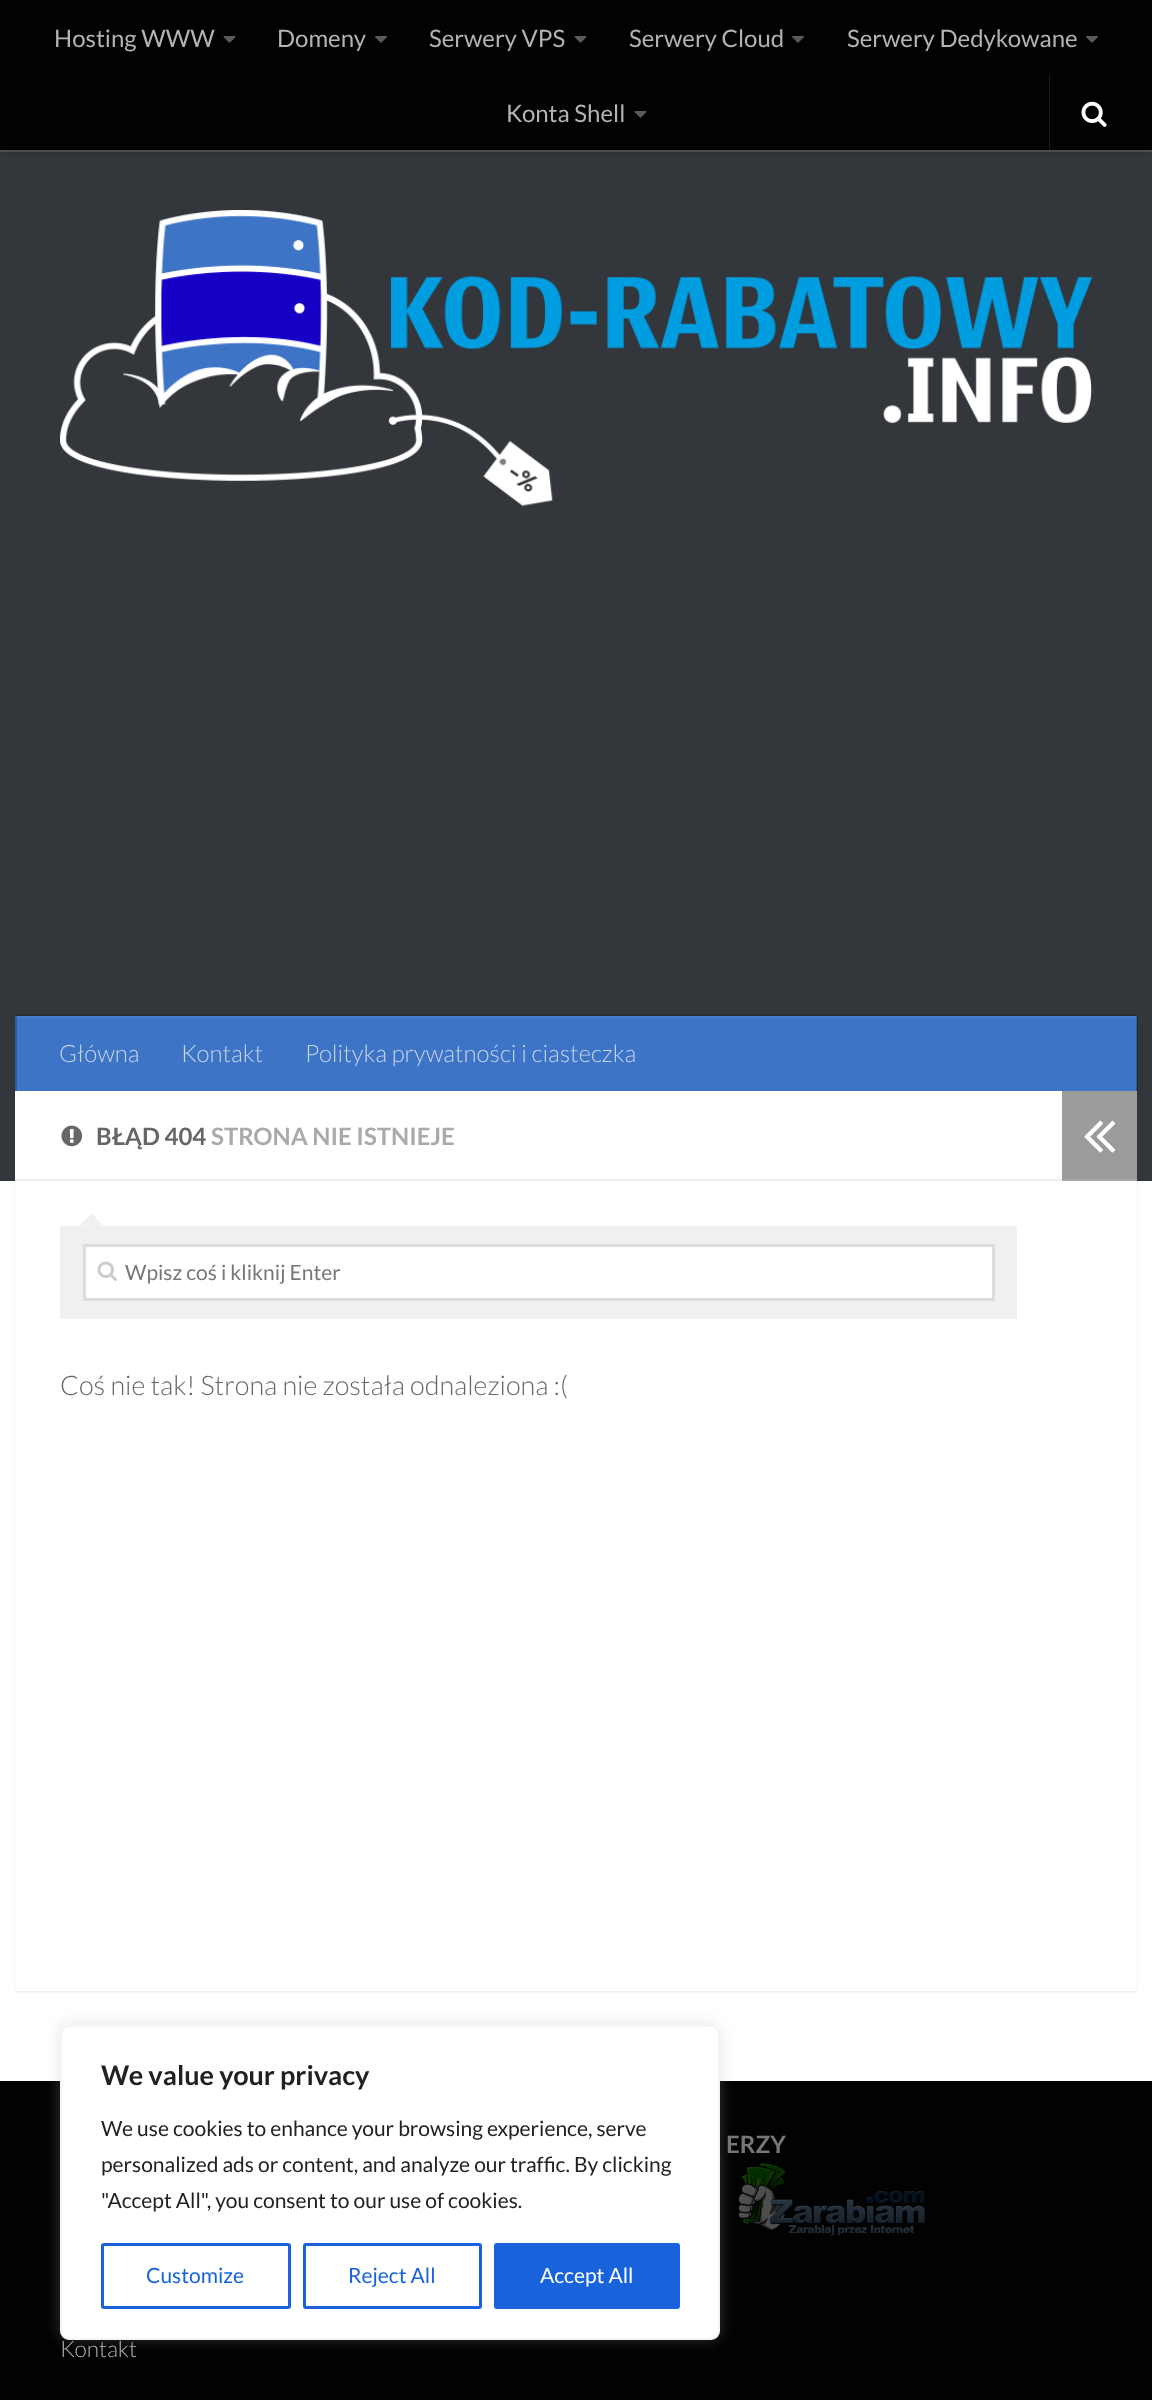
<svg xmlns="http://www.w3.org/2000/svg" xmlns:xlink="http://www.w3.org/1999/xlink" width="1152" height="2400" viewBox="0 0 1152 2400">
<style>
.cls-1{font:24px Lato;fill:#b3b3b3}
.cls-2{font:300 24px Lato;fill:#c5d5ee}
.cls-3{font:bold 24px Lato;fill:#666666}
.cls-4{font:bold 24px Lato;fill:#aaaaaa}
.cls-5{font:21px Lato;fill:#777777}
.cls-6{font:300 27px Lato;fill:#666666}
.cls-7{font:bold 24px Lato;fill:#777777}
.cls-8{font:300 22.5px Lato;fill:#b3b3b3}
.cls-9{font:bold 27px 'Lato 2';fill:#212121}
.cls-10{font:21px Lato;fill:#212121}
.cls-11{font:21px Lato;fill:#1863dc}
.cls-12{font:21px Lato;fill:#ffffff}
</style>
<rect width="100%" height="100%" fill="#ffffff"/>
<rect fill="#000000" fill-opacity="0.1" filter="blur(1px)" x="15" y="1092" width="1122" height="900"/>
<rect fill="#33363b" x="0" y="152" width="1152" height="1029"/>
<rect fill="#525458" x="0" y="150" width="1152" height="2"/>
<rect fill="#000000" fill-opacity="0.2" filter="blur(4px)" x="0" y="0" width="1152" height="150"/>
<rect fill="#020202" x="0" y="0" width="1152" height="150"/>
<image xlink:href="image0.png" x="223" y="36" width="13" height="7"/>
<image xlink:href="image1.png" x="375" y="36" width="12" height="7"/>
<image xlink:href="image0.png" x="574" y="36" width="13" height="7"/>
<image xlink:href="image1.png" x="792" y="36" width="12" height="7"/>
<image xlink:href="image1.png" x="1086" y="36" width="12" height="7"/>
<image xlink:href="image0.png" x="634" y="111" width="13" height="7"/>
<rect fill="#1b1b1b" x="1049" y="75" width="1" height="75"/>
<image xlink:href="image2.png" x="1081" y="101" width="26" height="26"/>
<image xlink:href="image3.png" x="60" y="210" width="1032" height="296"/>
<rect fill="#292b2f" x="15" y="1014" width="1122" height="2"/>
<rect fill="#3d74c6" x="17" y="1016" width="1120" height="75"/>
<rect fill="#000000" fill-opacity="0.2" x="1136" y="1016" width="2" height="75"/>
<rect fill="#315d9e" x="15" y="1016" width="2" height="75"/>
<rect fill="#ffffff" fill-opacity="0.05" x="15" y="1016" width="1122" height="2"/>
<rect fill="#ffffff" x="15" y="1091" width="1122" height="900"/>
<rect fill="#eeeeee" x="15" y="1179" width="1047" height="2"/>
<image xlink:href="image4.png" x="61" y="1125" width="22" height="22"/>
<rect fill="#f0f0f0" x="60" y="1226" width="957" height="93"/>
<path fill="#f1f1f1" d="M103.5 1225.5H79.5L91.5 1213.5Z"/>
<path fill="#f1f1f1" d="M100.5 1227H82.5L91.5 1218Z"/>
<rect fill="#ffffff" stroke="#dddddd" stroke-width="3" x="84.5" y="1245.5" width="909" height="54"/>
<image xlink:href="image5.png" x="97" y="1261" width="20" height="20"/>
<rect fill="#9b9b9b" x="1062" y="1091" width="75" height="88"/>
<rect fill="#a5a5a5" x="1062" y="1179" width="75" height="2"/>
<image xlink:href="image6.png" x="1084" y="1120" width="32" height="33"/>
<rect fill="#020202" x="0" y="2081" width="1152" height="319"/>
<image xlink:href="image7.png" x="738" y="2163" width="187" height="73"/>
<rect fill="#acabab" fill-opacity="0.3" filter="blur(7.5px)" x="60" y="2024" width="660" height="315" rx="9"/>
<rect fill="#ffffff" stroke="#f4f4f4" stroke-width="2" x="61" y="2026" width="658" height="313" rx="8"/>
<rect fill="none" stroke="#1863dc" stroke-width="3" x="102.5" y="2244.5" width="187" height="63" rx="1.5"/>
<rect fill="none" stroke="#1863dc" stroke-width="3" x="304.5" y="2244.5" width="176" height="63" rx="1.5"/>
<rect fill="#1863dc" stroke="#1863dc" stroke-width="3" x="495.5" y="2244.5" width="183" height="63" rx="1.5"/>
<text class="cls-1" x="54" y="47">Hosting WWW</text>
<text class="cls-1" x="277" y="47">Domeny</text>
<text class="cls-1" x="429" y="47">Serwery VPS</text>
<text class="cls-1" x="629" y="47">Serwery Cloud</text>
<text class="cls-1" x="847" y="47">Serwery Dedykowane</text>
<text class="cls-1" x="506" y="122">Konta Shell</text>
<text class="cls-2" x="59" y="1062">Główna</text>
<text class="cls-2" x="181" y="1062">Kontakt</text>
<text class="cls-2" x="305" y="1062">Polityka prywatności i ciasteczka</text>
<text class="cls-3" x="96" y="1145">BŁĄD 404</text>
<text class="cls-4" x="211" y="1145">STRONA NIE ISTNIEJE</text>
<text class="cls-5" x="125" y="1280">Wpisz coś i kliknij Enter</text>
<text class="cls-6" x="60" y="1395">Coś nie tak! Strona nie została odnaleziona :(</text>
<text class="cls-7" x="726" y="2153">ERZY</text>
<text class="cls-8" x="60" y="2357">Kontakt</text>
<text class="cls-9" x="101" y="2085">We value your privacy</text>
<text class="cls-10"><tspan x="101" y="2136">We use cookies to enhance your browsing experience, serve</tspan><tspan x="101" y="2172">personalized ads or content, and analyze our traffic. By clicking</tspan><tspan x="101" y="2208">"Accept All", you consent to our use of cookies.</tspan></text>
<text class="cls-11" x="146" y="2283">Customize</text>
<text class="cls-11" x="348" y="2283">Reject All</text>
<text class="cls-12" x="540" y="2283">Accept All</text>
</svg>
